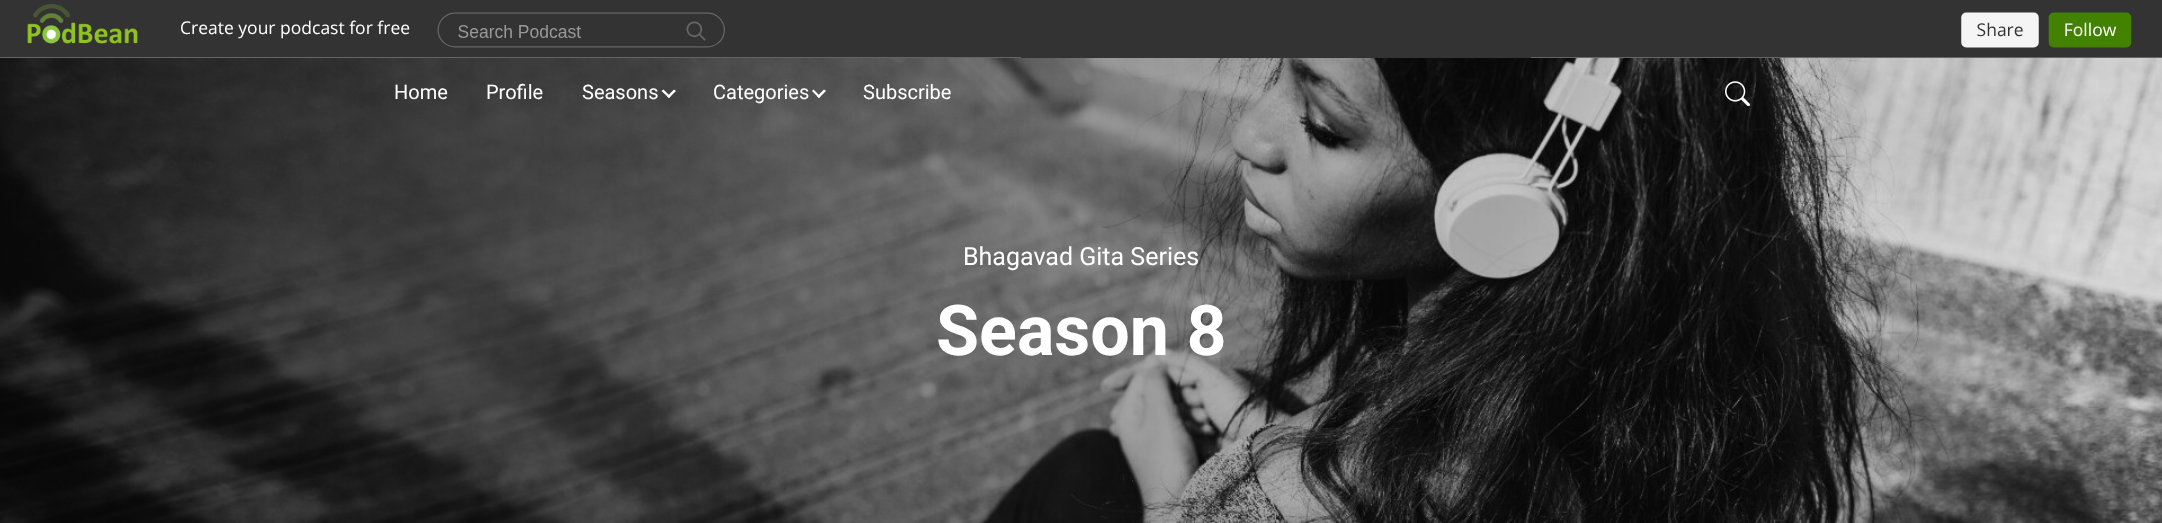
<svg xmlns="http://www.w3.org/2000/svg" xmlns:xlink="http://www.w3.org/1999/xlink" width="2162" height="523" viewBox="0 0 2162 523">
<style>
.cls-1{font:20px Roboto;fill:#ffffff}
.cls-2{font:25px Roboto;fill:#ffffff}
.cls-3{font:bold 70px Roboto;fill:#ffffff}
</style>
<rect width="100%" height="100%" fill="#ffffff"/>
<rect fill="#333333" x="0" y="0" width="2162" height="4"/>
<image xlink:href="image0.png" x="0" y="4" width="2162" height="54"/>
<image xlink:href="image2.png" x="0" y="58" width="2162" height="465"/>
<path fill="#ffffff" d="M674 89.5L676 91L669 98L667 96.5Z"/>
<path fill="#ffffff" d="M663.5 89.5L670.5 96.5L669 98L661.5 91Z"/>
<path fill="#ffffff" d="M824 89.5L826 91L819 98L817 96.5Z"/>
<path fill="#ffffff" d="M813.5 89.5L820.5 96.5L819 98L812 91Z"/>
<image xlink:href="image1.png" x="1725" y="81" width="25" height="25"/>
<text class="cls-1" x="394" y="99">Home</text>
<text class="cls-1" x="486" y="99">Profile</text>
<text class="cls-1" x="582" y="99">Seasons</text>
<text class="cls-1" x="713" y="99">Categories</text>
<text class="cls-1" x="863" y="99">Subscribe</text>
<text class="cls-2" x="963" y="265">Bhagavad Gita Series</text>
<text class="cls-3" x="936" y="355">Season 8</text>
</svg>
